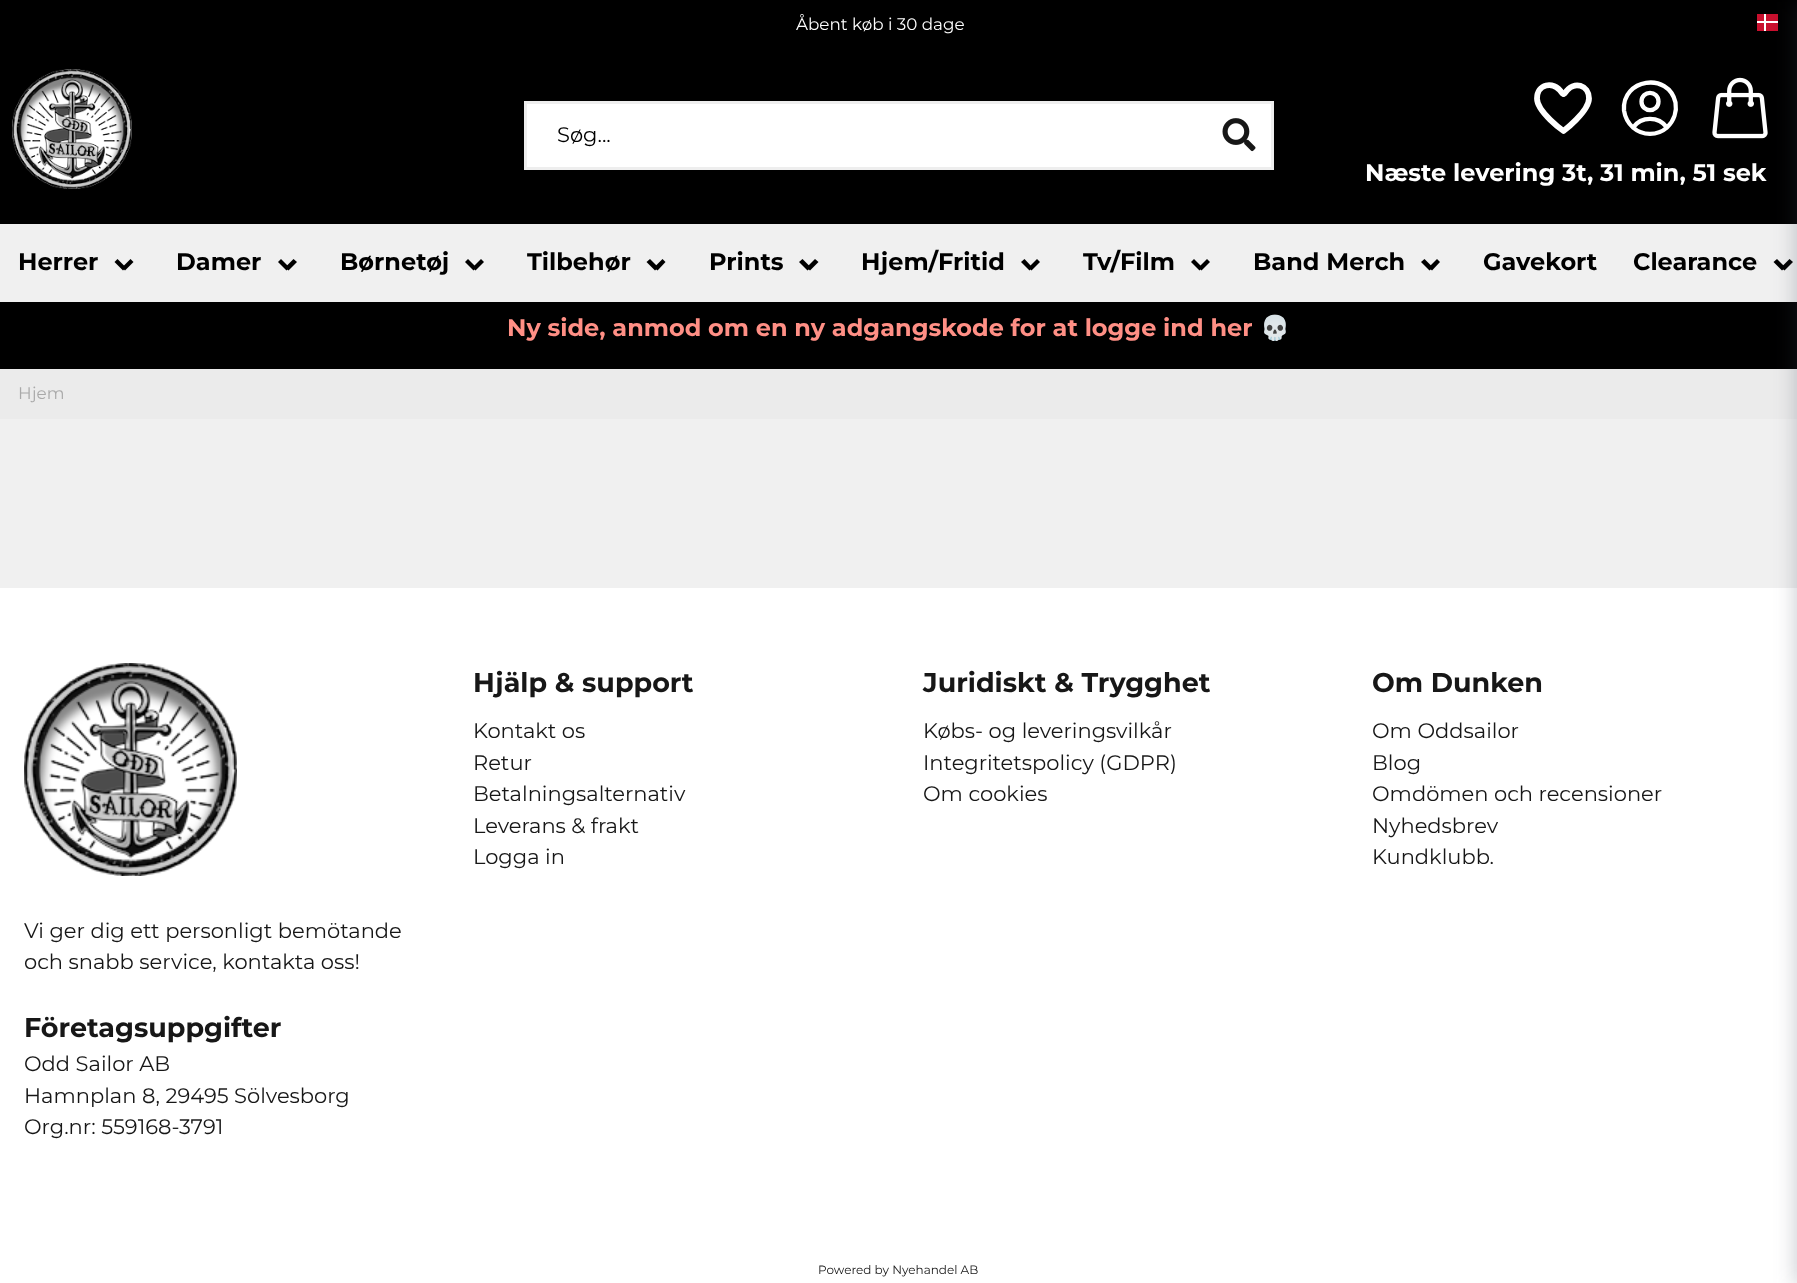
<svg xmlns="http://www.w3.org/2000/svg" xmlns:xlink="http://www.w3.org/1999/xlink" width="1797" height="1283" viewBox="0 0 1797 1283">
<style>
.cls-1{font:16.75px Montserrat;fill:#ffffff}
.cls-2{font:21px Montserrat;fill:#000000}
.cls-3{font:bold 24px Montserrat;fill:#ffffff}
.cls-4{font:bold 24px Montserrat;fill:#000000}
.cls-5{font:bold 24px Montserrat;fill:#ff8f85}
.cls-6{font:bold 24px Noto Color Emoji;fill:#ff8f85}
.cls-7{font:16.75px Montserrat;fill:#a9a9a9}
.cls-8{font:bold 27px Montserrat;fill:#171717}
.cls-9{font:21px Montserrat;fill:#171717}
.cls-10{font:12px Montserrat;fill:#171717}
</style>
<rect width="100%" height="100%" fill="#f0f0f0"/>
<rect fill="#000000" x="0" y="0" width="1797" height="224"/>
<rect fill="#c8102e" x="1757" y="14" width="21" height="17"/>
<rect fill="#ffffff" x="1764" y="14" width="2" height="17"/>
<rect fill="#ffffff" x="1757" y="21" width="21" height="2"/>
<image xlink:href="image0.png" x="12" y="69" width="120" height="120"/>
<rect fill="#ffffff" stroke="#eeeeee" stroke-width="3" x="525.5" y="102.5" width="747" height="66"/>
<image xlink:href="image1.png" x="1222" y="118" width="34" height="34"/>
<path fill="none" stroke="#ffffff" stroke-width="5.8" stroke-linecap="round" stroke-linejoin="round" d="M1562 93C1553 79.5 1537 84.5 1537 98.5C1537 112 1563.5 131 1563.5 131C1563.5 131 1589 111.5 1589 98.5C1589 85.5 1574 79.5 1565 93L1563.5 94Z"/>
<path fill="none" stroke="#ffffff" stroke-width="4.3" stroke-linecap="round" stroke-linejoin="round" d="M1667 127.5C1658.5 116 1641.5 116 1633 127.5M1667 127.5C1674 121 1677 111.5 1675.5 102.5C1668.5 71.5 1621.5 78.5 1624 110.5C1625 117 1628 123 1633 127.5M1667 127.5C1657.5 136 1642.5 136 1633 127.5M1658.5 101.5C1658.5 113 1641.5 113 1641.5 101.5C1641.5 90 1658.5 90 1658.5 101.5Z"/>
<image xlink:href="image2.png" x="1712" y="77" width="56" height="62"/>
<path fill="#000000" d="M122 267.5L130.5 259L133.5 262L125 270.5Z"/>
<path fill="#000000" d="M114.5 262L117.5 259L126 267.5L123 270.5Z"/>
<path fill="#000000" d="M285 267.5L293.5 259L297 262L288.5 270.5Z"/>
<path fill="#000000" d="M278 262L281 259L289.5 267.5L286.5 270.5Z"/>
<path fill="#000000" d="M472.5 267.5L481 259L484 262L475.5 270.5Z"/>
<path fill="#000000" d="M465 262L468 259L476.5 267.5L473.5 270.5Z"/>
<path fill="#000000" d="M654 267.5L662.5 259L665.5 262L657.5 270.5Z"/>
<path fill="#000000" d="M646.5 262L650 259L658.5 267.5L655 270.5Z"/>
<path fill="#000000" d="M806.5 267.5L815 259L818.5 262L810 270.5Z"/>
<path fill="#000000" d="M799 262L802.5 259L811 267.5L807.5 270.5Z"/>
<path fill="#000000" d="M1028.5 267.5L1037 259L1040 262L1031.5 270.5Z"/>
<path fill="#000000" d="M1021 262L1024.5 259L1032.5 267.5L1029.5 270.5Z"/>
<path fill="#000000" d="M1198.5 267.5L1207 259L1210 262L1201.5 270.5Z"/>
<path fill="#000000" d="M1191 262L1194 259L1202.5 267.5L1199.5 270.5Z"/>
<path fill="#000000" d="M1428.5 267.5L1437 259L1440 262L1432 270.5Z"/>
<path fill="#000000" d="M1421 262L1424.5 259L1433 267.5L1429.5 270.5Z"/>
<path fill="#000000" d="M1781 267.5L1789.5 259L1793 262L1784.5 270.5Z"/>
<path fill="#000000" d="M1773.5 262L1777 259L1785.5 267.5L1782 270.5Z"/>
<rect fill="#000000" x="0" y="302" width="1797" height="67"/>
<rect fill="#ebebeb" x="0" y="369" width="1797" height="50"/>
<rect fill="#ffffff" x="0" y="588" width="1797" height="695"/>
<rect fill="#3c4257" fill-opacity="0.3" filter="blur(11px)" x="1797" y="2" width="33" height="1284"/>
<image xlink:href="image3.png" x="24" y="663" width="213" height="213"/>
<text class="cls-1" x="796" y="30">Åbent køb i 30 dage</text>
<text class="cls-2" x="557" y="142">Søg...</text>
<text class="cls-3" x="1365" y="181">Næste levering 3t, 31 min, 51 sek</text>
<text class="cls-4" x="18" y="270">Herrer</text>
<text class="cls-4" x="176" y="270">Damer</text>
<text class="cls-4" x="340" y="270">Børnetøj</text>
<text class="cls-4" x="527" y="270">Tilbehør</text>
<text class="cls-4" x="709" y="270">Prints</text>
<text class="cls-4" x="861" y="270">Hjem/Fritid</text>
<text class="cls-4" x="1083" y="270">Tv/Film</text>
<text class="cls-4" x="1253" y="270">Band Merch</text>
<text class="cls-4" x="1483" y="270">Gavekort</text>
<text class="cls-4" x="1633" y="270">Clearance</text>
<text class="cls-5" x="507" y="336">Ny side, anmod om en ny adgangskode for at logge ind her</text>
<text class="cls-6" x="1260" y="336">💀</text>
<text class="cls-7" x="18" y="399">Hjem</text>
<text class="cls-8" x="473" y="692">Hjälp &amp; support</text>
<text class="cls-9"><tspan x="473" y="738">Kontakt os</tspan><tspan x="473" y="770">Retur</tspan><tspan x="473" y="801">Betalningsalternativ</tspan><tspan x="473" y="833">Leverans &amp; frakt</tspan><tspan x="473" y="864">Logga in</tspan></text>
<text class="cls-8" x="923" y="692">Juridiskt &amp; Trygghet</text>
<text class="cls-9"><tspan x="923" y="738">Købs- og leveringsvilkår</tspan><tspan x="923" y="770">Integritetspolicy (GDPR)</tspan><tspan x="923" y="801">Om cookies</tspan></text>
<text class="cls-8" x="1372" y="692">Om Dunken</text>
<text class="cls-9"><tspan x="1372" y="738">Om Oddsailor</tspan><tspan x="1372" y="770">Blog</tspan><tspan x="1372" y="801">Omdömen och recensioner</tspan><tspan x="1372" y="833">Nyhedsbrev</tspan><tspan x="1372" y="864">Kundklubb.</tspan></text>
<text class="cls-9"><tspan x="24" y="938">Vi ger dig ett personligt bemötande</tspan><tspan x="24" y="969">och snabb service, kontakta oss!</tspan></text>
<text class="cls-8" x="24" y="1037">Företagsuppgifter</text>
<text class="cls-9"><tspan x="24" y="1071">Odd Sailor AB</tspan><tspan x="24" y="1103">Hamnplan 8, 29495 Sölvesborg</tspan><tspan x="24" y="1134">Org.nr: 559168-3791</tspan></text>
<text class="cls-10" x="818" y="1274">Powered by Nyehandel AB</text>
</svg>
